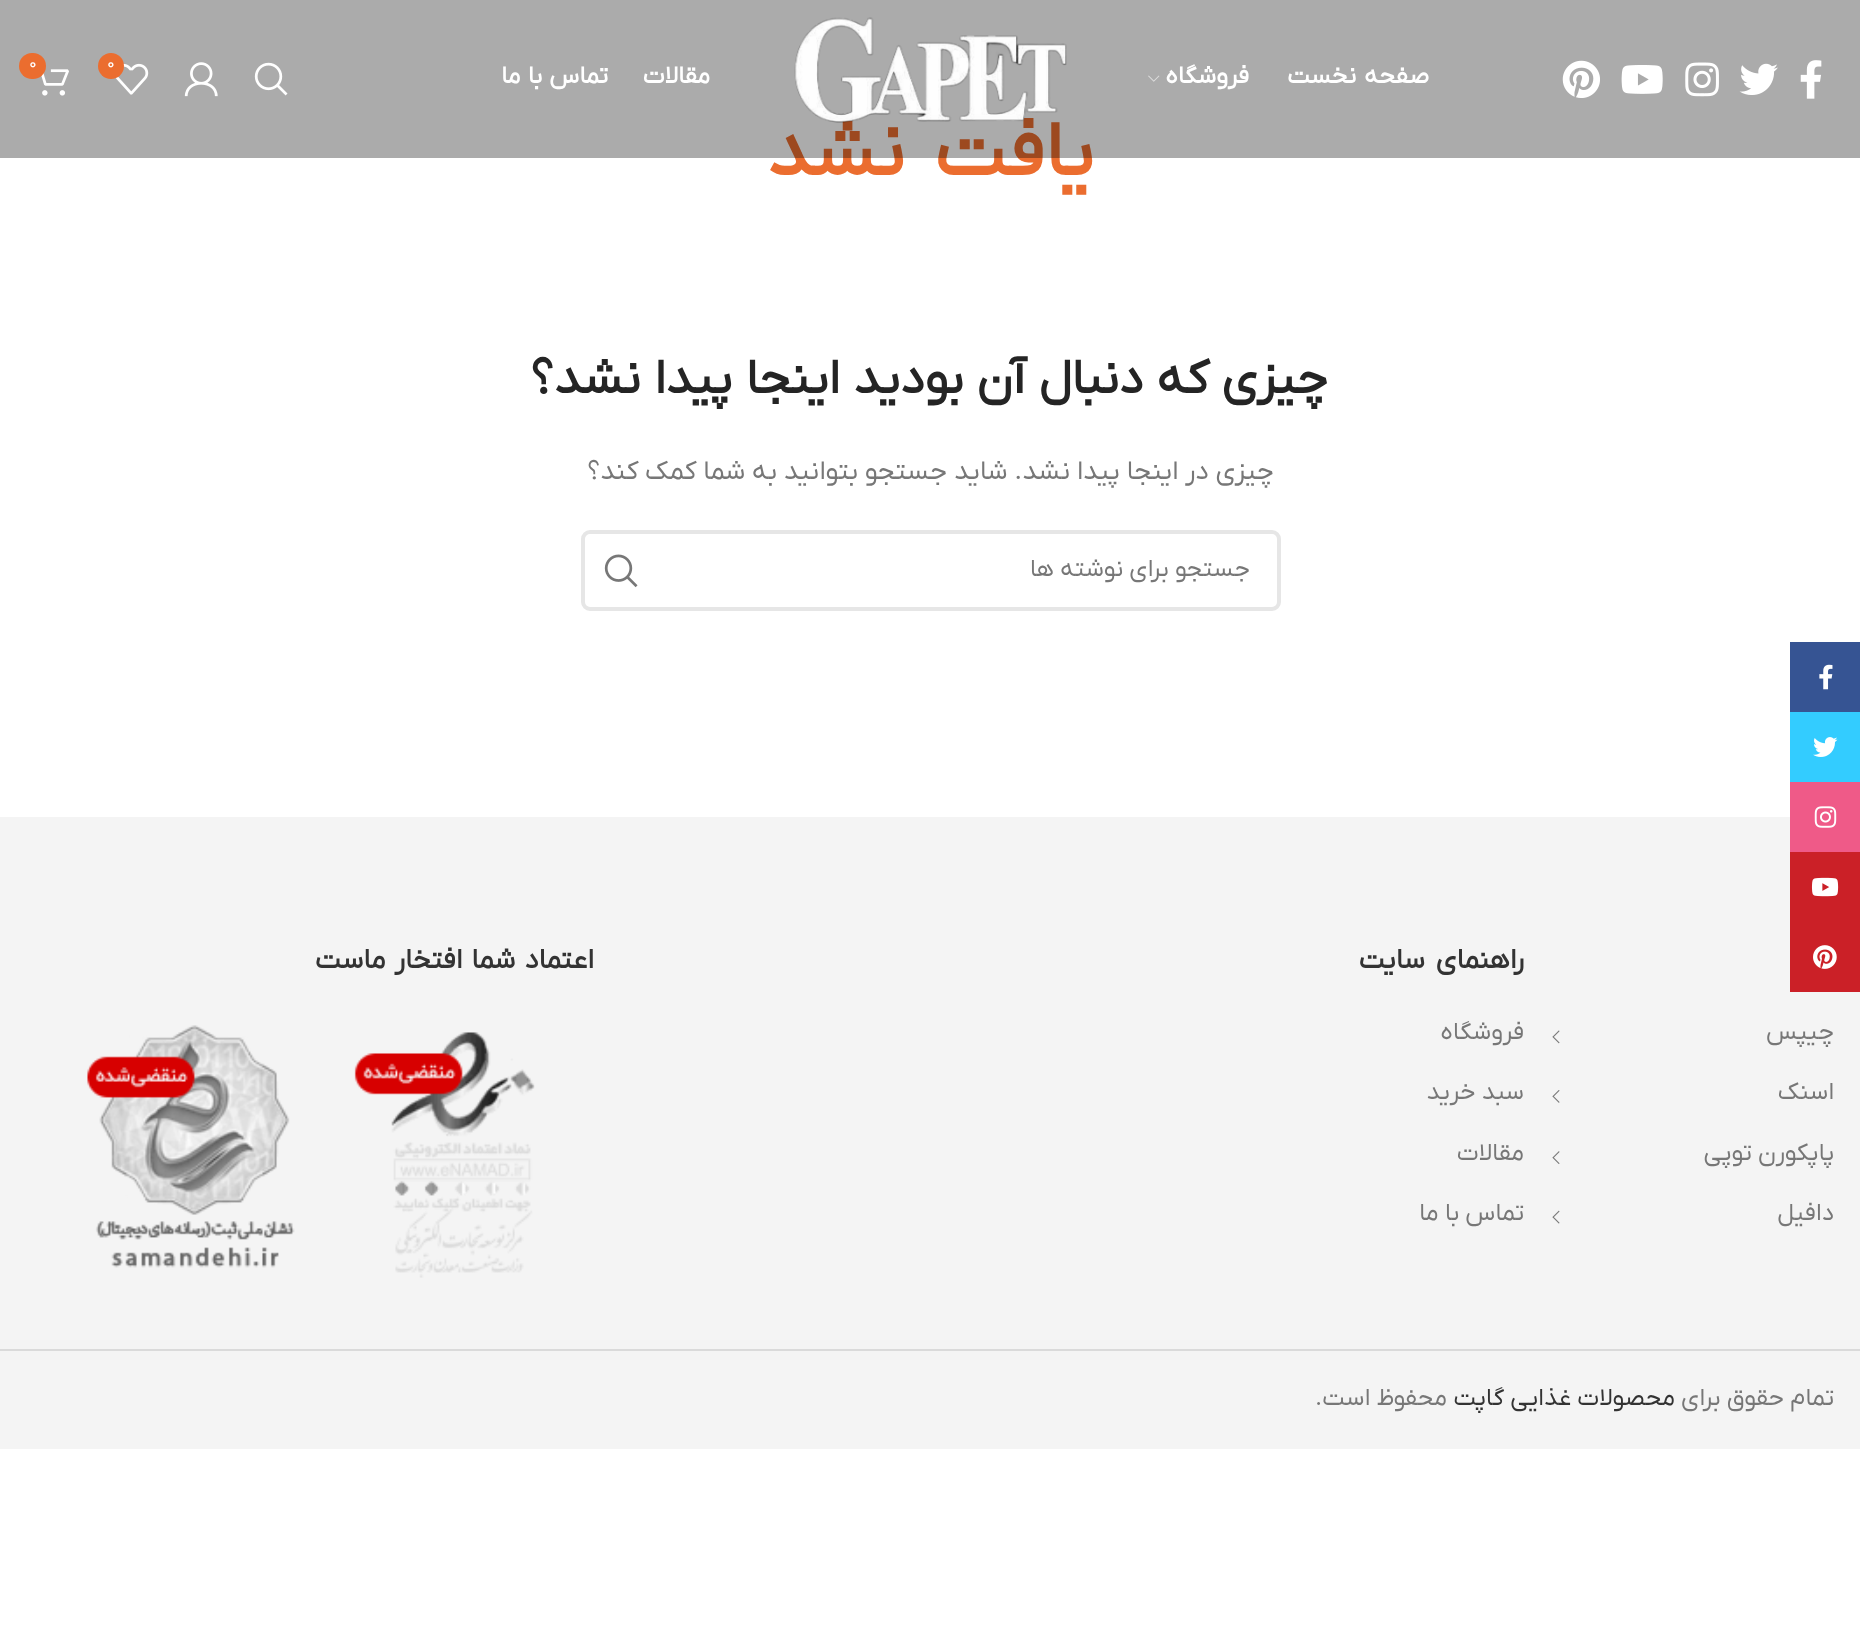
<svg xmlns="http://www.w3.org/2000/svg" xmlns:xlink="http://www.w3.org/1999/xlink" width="1860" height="1634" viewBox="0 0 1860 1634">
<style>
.cls-1{font:bold 78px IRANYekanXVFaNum;direction:rtl;fill:#eb6d2f}
.cls-2{font:16px IRANYekanXVFaNum;fill:#ffffff}
.cls-3{font:bold 24.5px IRANYekanXVFaNum;direction:rtl;fill:#ffffff}
.cls-4{font:bold 49px IRANYekanXVFaNum;direction:rtl;fill:#242424}
.cls-5{font:26.95px IRANYekanXVFaNum;direction:rtl;fill:#777777}
.cls-6{font:24.5px IRANYekanXVFaNum;direction:rtl;fill:#777777}
.cls-7{font:bold 28px IRANYekanXVFaNum;direction:rtl;fill:#333333}
.cls-8{font:24.5px IRANYekanXVFaNum;direction:rtl;fill:#333333}
</style>
<rect width="100%" height="100%" fill="#ffffff"/>
<rect fill="none" stroke="#e6e6e6" stroke-width="4" x="583" y="532" width="696" height="77" rx="7"/>
<image xlink:href="image11.png" x="604" y="554" width="34" height="34"/>
<rect fill="#f4f4f4" x="0" y="817" width="1860" height="632"/>
<image xlink:href="image12.png" x="1552" y="1030" width="8" height="14"/>
<image xlink:href="image13.png" x="1552" y="1090" width="8" height="13"/>
<image xlink:href="image14.png" x="1552" y="1151" width="8" height="13"/>
<image xlink:href="image15.png" x="1552" y="1210" width="8" height="14"/>
<image xlink:href="image16.png" x="354" y="1032" width="181" height="246"/>
<image xlink:href="image17.png" x="87" y="1025" width="208" height="243"/>
<rect fill="#dadada" x="0" y="1349" width="1860" height="2"/>
<rect fill="#365493" x="1790" y="642" width="70" height="70"/>
<image xlink:href="image18.png" x="1819" y="664" width="14" height="26"/>
<rect fill="#33ccff" x="1790" y="712" width="70" height="70"/>
<image xlink:href="image19.png" x="1813" y="737" width="25" height="20"/>
<rect fill="#ef5a88" x="1790" y="782" width="70" height="70"/>
<image xlink:href="image20.png" x="1814" y="806" width="23" height="22"/>
<rect fill="#cb2027" x="1790" y="852" width="70" height="140"/>
<image xlink:href="image21.png" x="1811" y="877" width="28" height="20"/>
<image xlink:href="image22.png" x="1813" y="945" width="24" height="24"/>
<text class="cls-1" x="1094" y="175" word-spacing="10">یافت نشد</text>
<rect fill="#000000" fill-opacity="0.33" x="0" y="0" width="1860" height="158"/>
<image xlink:href="image10.png" x="41" y="69" width="28" height="27"/>
<rect fill="#eb6d2f" x="19" y="53" width="27" height="26" rx="13"/>
<text class="cls-2" x="29" y="68">0</text>
<image xlink:href="image9.png" x="115" y="63" width="34" height="32"/>
<circle fill="#eb6d2f" cx="111" cy="66" r="13"/>
<text class="cls-2" x="107" y="68">0</text>
<image xlink:href="image8.png" x="184" y="62" width="34" height="35"/>
<image xlink:href="image7.png" x="254" y="62" width="34" height="34"/>
<text class="cls-3" x="608" y="83" word-spacing="1">تماس با ما</text>
<text class="cls-3" x="710" y="83">مقالات</text>
<image xlink:href="image6.png" x="794" y="17" width="273" height="106"/>
<text class="cls-3" x="1249" y="83">فروشگاه</text>
<image xlink:href="image5.png" x="1148" y="75" width="12" height="7"/>
<text class="cls-3" x="1429" y="83" word-spacing="2">صفحه نخست</text>
<image xlink:href="image4.png" x="1562" y="60" width="38" height="38"/>
<image xlink:href="image3.png" x="1621" y="65" width="42" height="29"/>
<image xlink:href="image2.png" x="1685" y="62" width="34" height="35"/>
<image xlink:href="image1.png" x="1739" y="63" width="39" height="32"/>
<image xlink:href="image0.png" x="1800" y="60" width="22" height="39"/>
<text class="cls-4" x="1328" y="393" word-spacing="1">چیزی که دنبال آن بودید اینجا پیدا نشد؟</text>
<text class="cls-5" x="1274" y="479">چیزی در اینجا پیدا نشد. شاید جستجو بتوانید به شما کمک کند؟</text>
<text class="cls-6" x="1250" y="576">جستجو برای نوشته ها</text>
<text class="cls-6" x="1834" y="1039">چیپس</text>
<text class="cls-6" x="1834" y="1099">اسنک</text>
<text class="cls-6" x="1834" y="1160">پاپکورن توپی</text>
<text class="cls-6" x="1834" y="1220">دافیل</text>
<text class="cls-7" x="1524" y="968" word-spacing="4">راهنمای سایت</text>
<text class="cls-6" x="1524" y="1039">فروشگاه</text>
<text class="cls-6" x="1524" y="1099">سبد خرید</text>
<text class="cls-6" x="1524" y="1160">مقالات</text>
<text class="cls-6" x="1524" y="1220">تماس با ما</text>
<text class="cls-7" x="594" y="968" word-spacing="2">اعتماد شما افتخار ماست</text>
<text class="cls-6" x="1834" y="1405">تمام حقوق برای</text>
<text class="cls-8" x="1675" y="1405">محصولات غذایی گاپت</text>
<text class="cls-6" x="1447" y="1405">محفوظ است.</text>
</svg>
